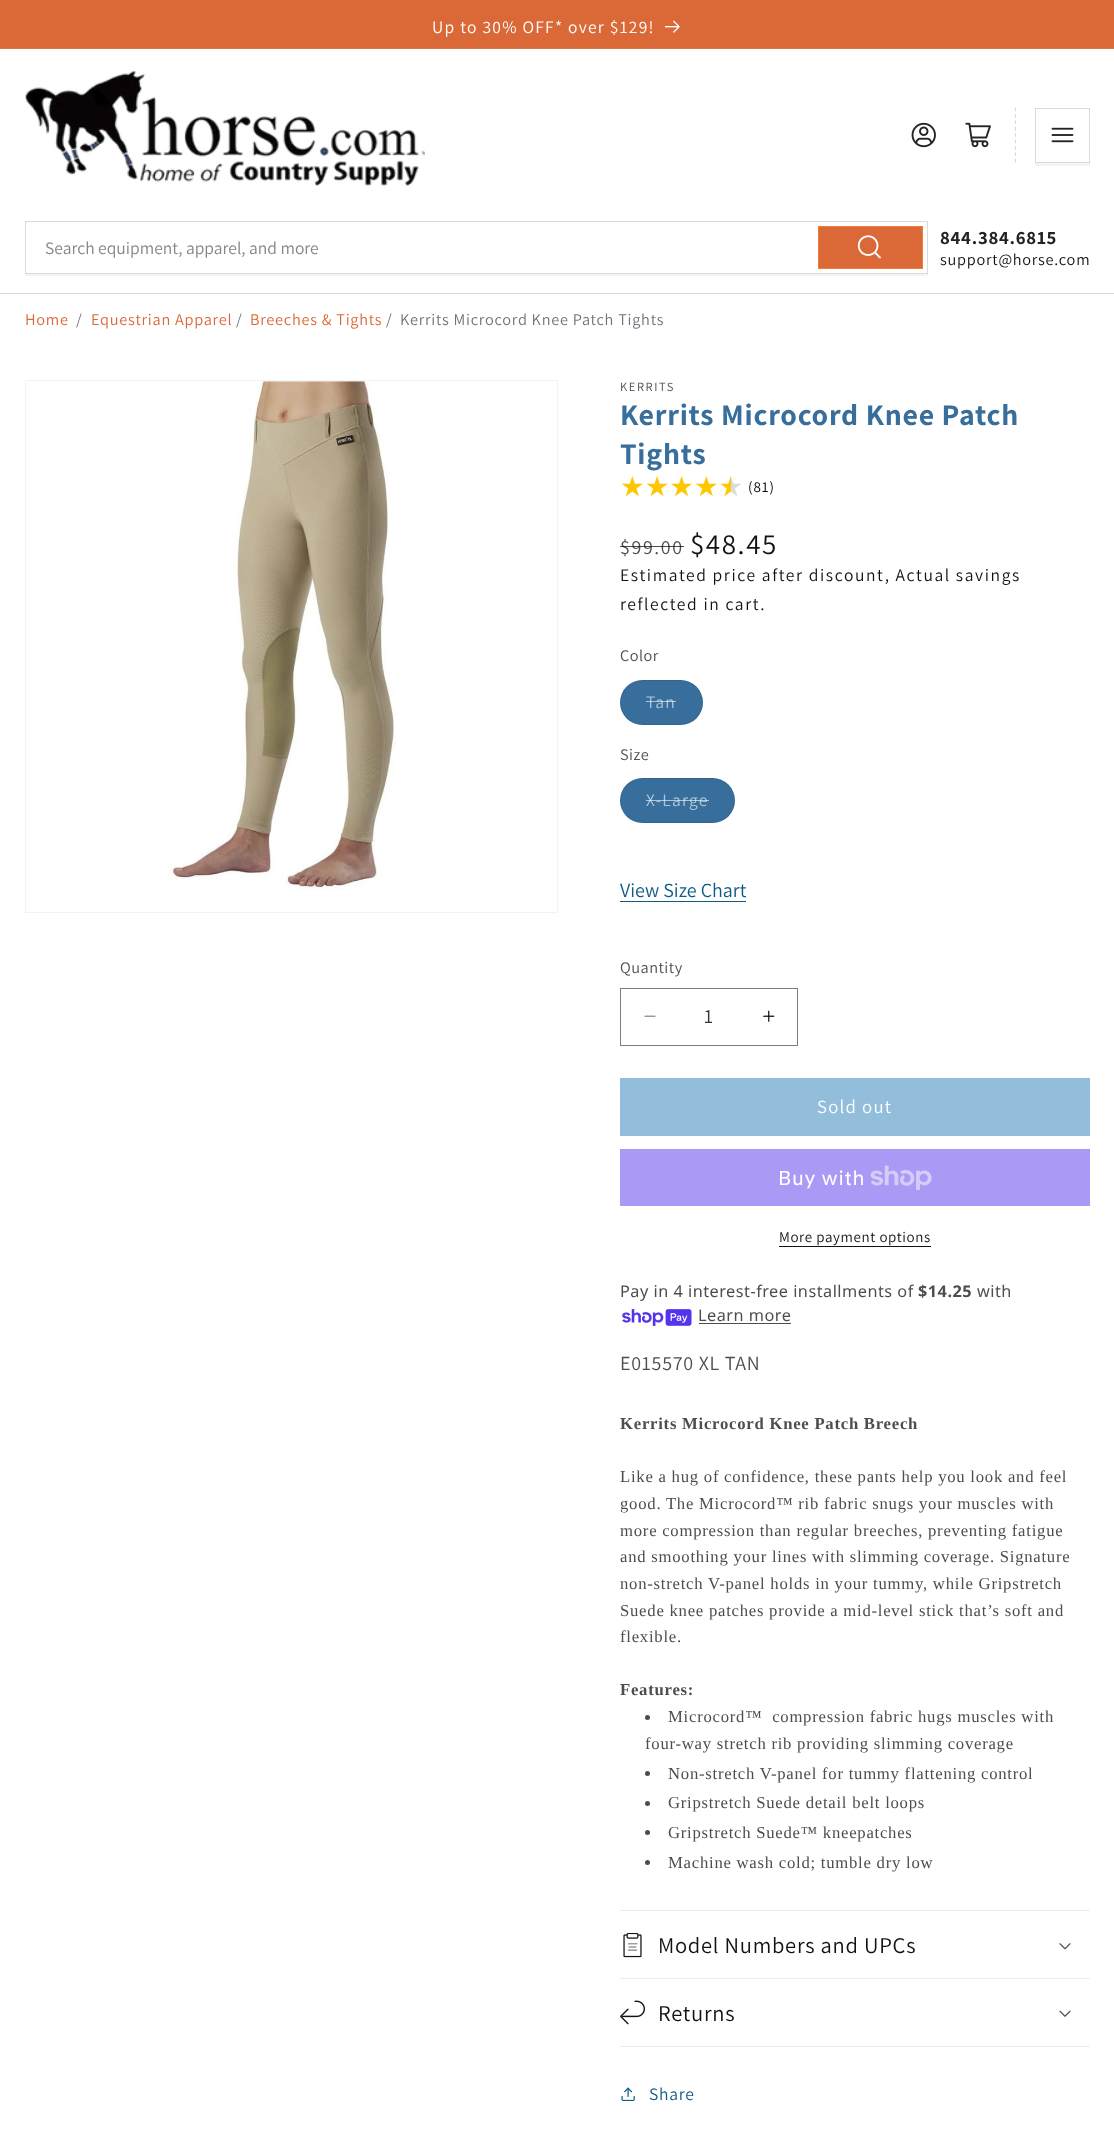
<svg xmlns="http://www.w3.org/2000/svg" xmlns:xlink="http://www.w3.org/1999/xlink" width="1114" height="2136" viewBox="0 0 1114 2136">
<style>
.cls-1{font:17.5px Assistant;letter-spacing:1.25px;fill:#ffffff}
.cls-2{font:17.5px Assistant;fill:#858585}
.cls-3{font:bold 18.75px Assistant;letter-spacing:0.75px;fill:#232323}
.cls-4{font:16.25px Assistant;letter-spacing:0.75px;fill:#121212}
.cls-5{font:16.25px Assistant;letter-spacing:0.75px;fill:#db6837}
.cls-6{font:16.25px Assistant;letter-spacing:0.75px;fill:#6c757d}
.cls-7{font:12.5px Assistant;letter-spacing:1.6px;fill:#4d4d4d}
.cls-8{font:bold 30px Assistant;letter-spacing:0.75px;fill:#386e9c}
.cls-9{font:27.5px DejaVu Sans;fill:url(#g1)}
.cls-10{font:15px Assistant;letter-spacing:1px;fill:#000000}
.cls-11{font:20px Assistant;letter-spacing:1.6px;fill:#4d4d4d}
.cls-12{font:29px Assistant;letter-spacing:1.6px;fill:#121212}
.cls-13{font:17.5px Assistant;letter-spacing:1.6px;fill:#121212}
.cls-14{font:16.25px Assistant;letter-spacing:0.5px;fill:#4d4d4d}
.cls-15{font:17.5px Assistant;letter-spacing:1.25px;fill:#afc5d7}
.cls-16{font:20px Assistant;fill:#105a84}
.cls-17{font:20px Assistant;fill:#363636}
.cls-18{font:18.75px Assistant;letter-spacing:1.25px;fill:#ffffff}
.cls-19{font:20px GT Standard;letter-spacing:0.75px;fill:#ffffff}
.cls-20{font:15px Assistant;letter-spacing:0.6px;fill:#121212}
.cls-21{font:16.25px Noto Sans;letter-spacing:0.5px;fill:#4d4d4d}
.cls-22{font:bold 16.25px Noto Sans;letter-spacing:0.5px;fill:#4d4d4d}
.cls-23{font:20px Assistant;letter-spacing:0.75px;fill:#4d4d4d}
.cls-24{font:bold 16.7px Liberation Serif;letter-spacing:0.75px;fill:#4d4d4d}
.cls-25{font:16.7px Liberation Serif;letter-spacing:0.75px;fill:#4d4d4d}
.cls-26{font:22.5px Assistant;letter-spacing:0.75px;fill:#121212}
.cls-27{font:17.5px Assistant;letter-spacing:0.75px;fill:#105a84}
</style>
<defs>
<linearGradient id="g1" gradientUnits="userSpaceOnUse" x1="620" y1="486" x2="743" y2="486"><stop offset="0.9" stop-color="#ffc700"/><stop offset="0.9" stop-color="#dbdbdb"/></linearGradient>
</defs>
<rect width="100%" height="100%" fill="#ffffff"/>
<rect fill="#db6837" x="0" y="0" width="1114" height="48"/>
<rect fill="#de7447" x="0" y="48" width="1114" height="1"/>
<image xlink:href="image0.png" x="665" y="20" width="15" height="13"/>
<rect fill="#dadada" x="0" y="293" width="1114" height="1"/>
<image xlink:href="image1.png" x="25" y="71" width="400" height="116"/>
<image xlink:href="image2.png" x="911" y="122" width="25" height="26"/>
<image xlink:href="image3.png" x="965" y="122" width="26" height="26"/>
<path fill="none" stroke="#dadada" stroke-width="1.2" stroke-dasharray="3.75 2.65" d="M1015.5 107.5V162.5"/>
<rect fill="#f4f4f4" x="1035" y="163" width="55" height="3"/>
<rect fill="none" stroke="#dadada" x="1035.5" y="108.5" width="54" height="54"/>
<image xlink:href="image4.png" x="1051" y="127" width="23" height="16"/>
<path fill="#f4f4f4" d="M25 274V276H928V224V274Z"/>
<rect fill="none" stroke="#dadada" x="25.5" y="221.5" width="902" height="52"/>
<rect fill="#db6837" x="819" y="227" width="103" height="41"/>
<image xlink:href="image5.png" x="857" y="235" width="24" height="24"/>
<rect fill="none" stroke="#f57c36" x="818.5" y="226.5" width="104" height="42"/>
<rect fill="none" stroke="#f3f3f3" x="25.5" y="380.5" width="532" height="532"/>
<image xlink:href="image6.png" x="166" y="381" width="231" height="509"/>
<rect fill="#386e9c" x="620" y="680" width="83" height="45" rx="22.5"/>
<rect fill="none" stroke="#121212" stroke-opacity="0.1" x="620.5" y="680.5" width="82" height="44" rx="22"/>
<rect fill="#386e9c" x="620" y="778" width="115" height="45" rx="22.5"/>
<rect fill="none" stroke="#121212" stroke-opacity="0.1" x="620.5" y="778.5" width="114" height="44" rx="22"/>
<rect fill="#105a84" x="620" y="901" width="126" height="1"/>
<image xlink:href="image7.png" x="644" y="1015" width="12" height="2"/>
<image xlink:href="image8.png" x="763" y="1010" width="12" height="12"/>
<rect fill="none" stroke="#7d7d7d" x="620.5" y="988.5" width="177" height="57"/>
<rect fill="#92bedb" x="620" y="1078" width="470" height="58"/>
<rect fill="#aa99f5" x="620" y="1149" width="470" height="57"/>
<image xlink:href="image9.png" x="870" y="1165" width="62" height="25"/>
<rect fill="#121212" x="779" y="1246" width="152" height="1"/>
<image xlink:href="image10.png" x="622" y="1309" width="70" height="17"/>
<rect fill="#4d4d4d" x="699" y="1323" width="92" height="1"/>
<circle fill="#4d4d4d" cx="647.5" cy="1717.5" r="2.5"/>
<circle fill="#4d4d4d" cx="647.5" cy="1773.5" r="2.5"/>
<circle fill="#4d4d4d" cx="647.5" cy="1803.5" r="2.5"/>
<circle fill="#4d4d4d" cx="647.5" cy="1832.5" r="2.5"/>
<circle fill="#4d4d4d" cx="647.5" cy="1862.5" r="2.5"/>
<rect fill="#ececec" x="620" y="1910" width="470" height="1"/>
<rect fill="#ececec" x="620" y="1978" width="470" height="1"/>
<image xlink:href="image11.png" x="623" y="1933" width="19" height="25"/>
<image xlink:href="image12.png" x="1059" y="1943" width="12" height="7"/>
<rect fill="#ececec" x="620" y="2046" width="470" height="1"/>
<image xlink:href="image13.png" x="620" y="2000" width="25" height="25"/>
<image xlink:href="image14.png" x="1059" y="2010" width="12" height="7"/>
<image xlink:href="image15.png" x="621" y="2087" width="14" height="14"/>
<text class="cls-1" x="432" y="33">Up to 30% OFF* over $129!</text>
<text class="cls-2" x="45" y="254">Search equipment, apparel, and more</text>
<text class="cls-3" x="940" y="244">844.384.6815</text>
<text class="cls-4" x="940" y="265">support@horse.com</text>
<text class="cls-5" x="25" y="325">Home</text>
<text class="cls-6" x="76" y="325">/</text>
<text class="cls-5" x="91" y="325">Equestrian Apparel</text>
<text class="cls-6" x="236" y="325">/</text>
<text class="cls-5" x="250" y="325">Breeches &amp; Tights</text>
<text class="cls-6" x="386" y="325">/</text>
<text class="cls-6" x="400" y="325">Kerrits Microcord Knee Patch Tights</text>
<text class="cls-7" x="620" y="391">KERRITS</text>
<text class="cls-8"><tspan x="620" y="425">Kerrits Microcord Knee Patch</tspan><tspan x="620" y="464">Tights</tspan></text>
<text class="cls-9" x="620" y="496">★★★★★</text>
<text class="cls-10" x="748" y="492">(81)</text>
<text class="cls-11" x="620" y="554">$99.00</text>
<rect fill="#121212" fill-opacity="0.75" x="620" y="546" width="64" height="1"/>
<text class="cls-12" x="690" y="554">$48.45</text>
<text class="cls-13"><tspan x="620" y="581">Estimated price after discount, Actual savings</tspan><tspan x="620" y="610">reflected in cart.</tspan></text>
<text class="cls-14" x="620" y="661">Color</text>
<text class="cls-15" x="646" y="708">Tan</text>
<rect fill="#ffffff" fill-opacity="0.6" x="646" y="701" width="30" height="1"/>
<text class="cls-14" x="620" y="760">Size</text>
<text class="cls-15" x="646" y="806">X-Large</text>
<rect fill="#ffffff" fill-opacity="0.6" x="646" y="800" width="63" height="1"/>
<text class="cls-16" x="620" y="897">View Size Chart</text>
<text class="cls-14" x="620" y="973">Quantity</text>
<text class="cls-17" x="704" y="1023">1</text>
<text class="cls-18" x="817" y="1113">Sold out</text>
<text class="cls-19" x="778" y="1185">Buy with</text>
<text class="cls-20" x="779" y="1242">More payment options</text>
<text class="cls-21" x="620" y="1297">Pay in 4 interest-free installments of</text>
<text class="cls-22" x="918" y="1297">$14.25</text>
<text class="cls-21" x="977" y="1297">with</text>
<text class="cls-21" x="698" y="1321">Learn more</text>
<text class="cls-23" x="620" y="1370">E015570 XL TAN</text>
<text class="cls-24" x="620" y="1429">Kerrits Microcord Knee Patch Breech</text>
<text class="cls-25"><tspan x="620" y="1482">Like a hug of confidence, these pants help you look and feel</tspan><tspan x="620" y="1509">good. The Microcord™ rib fabric snugs your muscles with</tspan><tspan x="620" y="1536">more compression than regular breeches, preventing fatigue</tspan><tspan x="620" y="1562">and smoothing your lines with slimming coverage. Signature</tspan><tspan x="620" y="1589">non-stretch V-panel holds in your tummy, while Gripstretch</tspan><tspan x="620" y="1616">Suede knee patches provide a mid-level stick that’s soft and</tspan><tspan x="620" y="1642">flexible.</tspan></text>
<text class="cls-24" x="620" y="1695">Features:</text>
<text class="cls-25" xml:space="preserve" x="668" y="1722">Microcord™  compression fabric hugs muscles with</text>
<text class="cls-25" x="645" y="1749">four-way stretch rib providing slimming coverage</text>
<text class="cls-25"><tspan x="668" y="1779">Non-stretch V-panel for tummy flattening control</tspan><tspan x="668" y="1808">Gripstretch Suede detail belt loops</tspan><tspan x="668" y="1838">Gripstretch Suede™ kneepatches</tspan><tspan x="668" y="1868">Machine wash cold; tumble dry low</tspan></text>
<text class="cls-26" x="658" y="1953">Model Numbers and UPCs</text>
<text class="cls-26" x="658" y="2021">Returns</text>
<text class="cls-27" x="649" y="2100">Share</text>
</svg>
